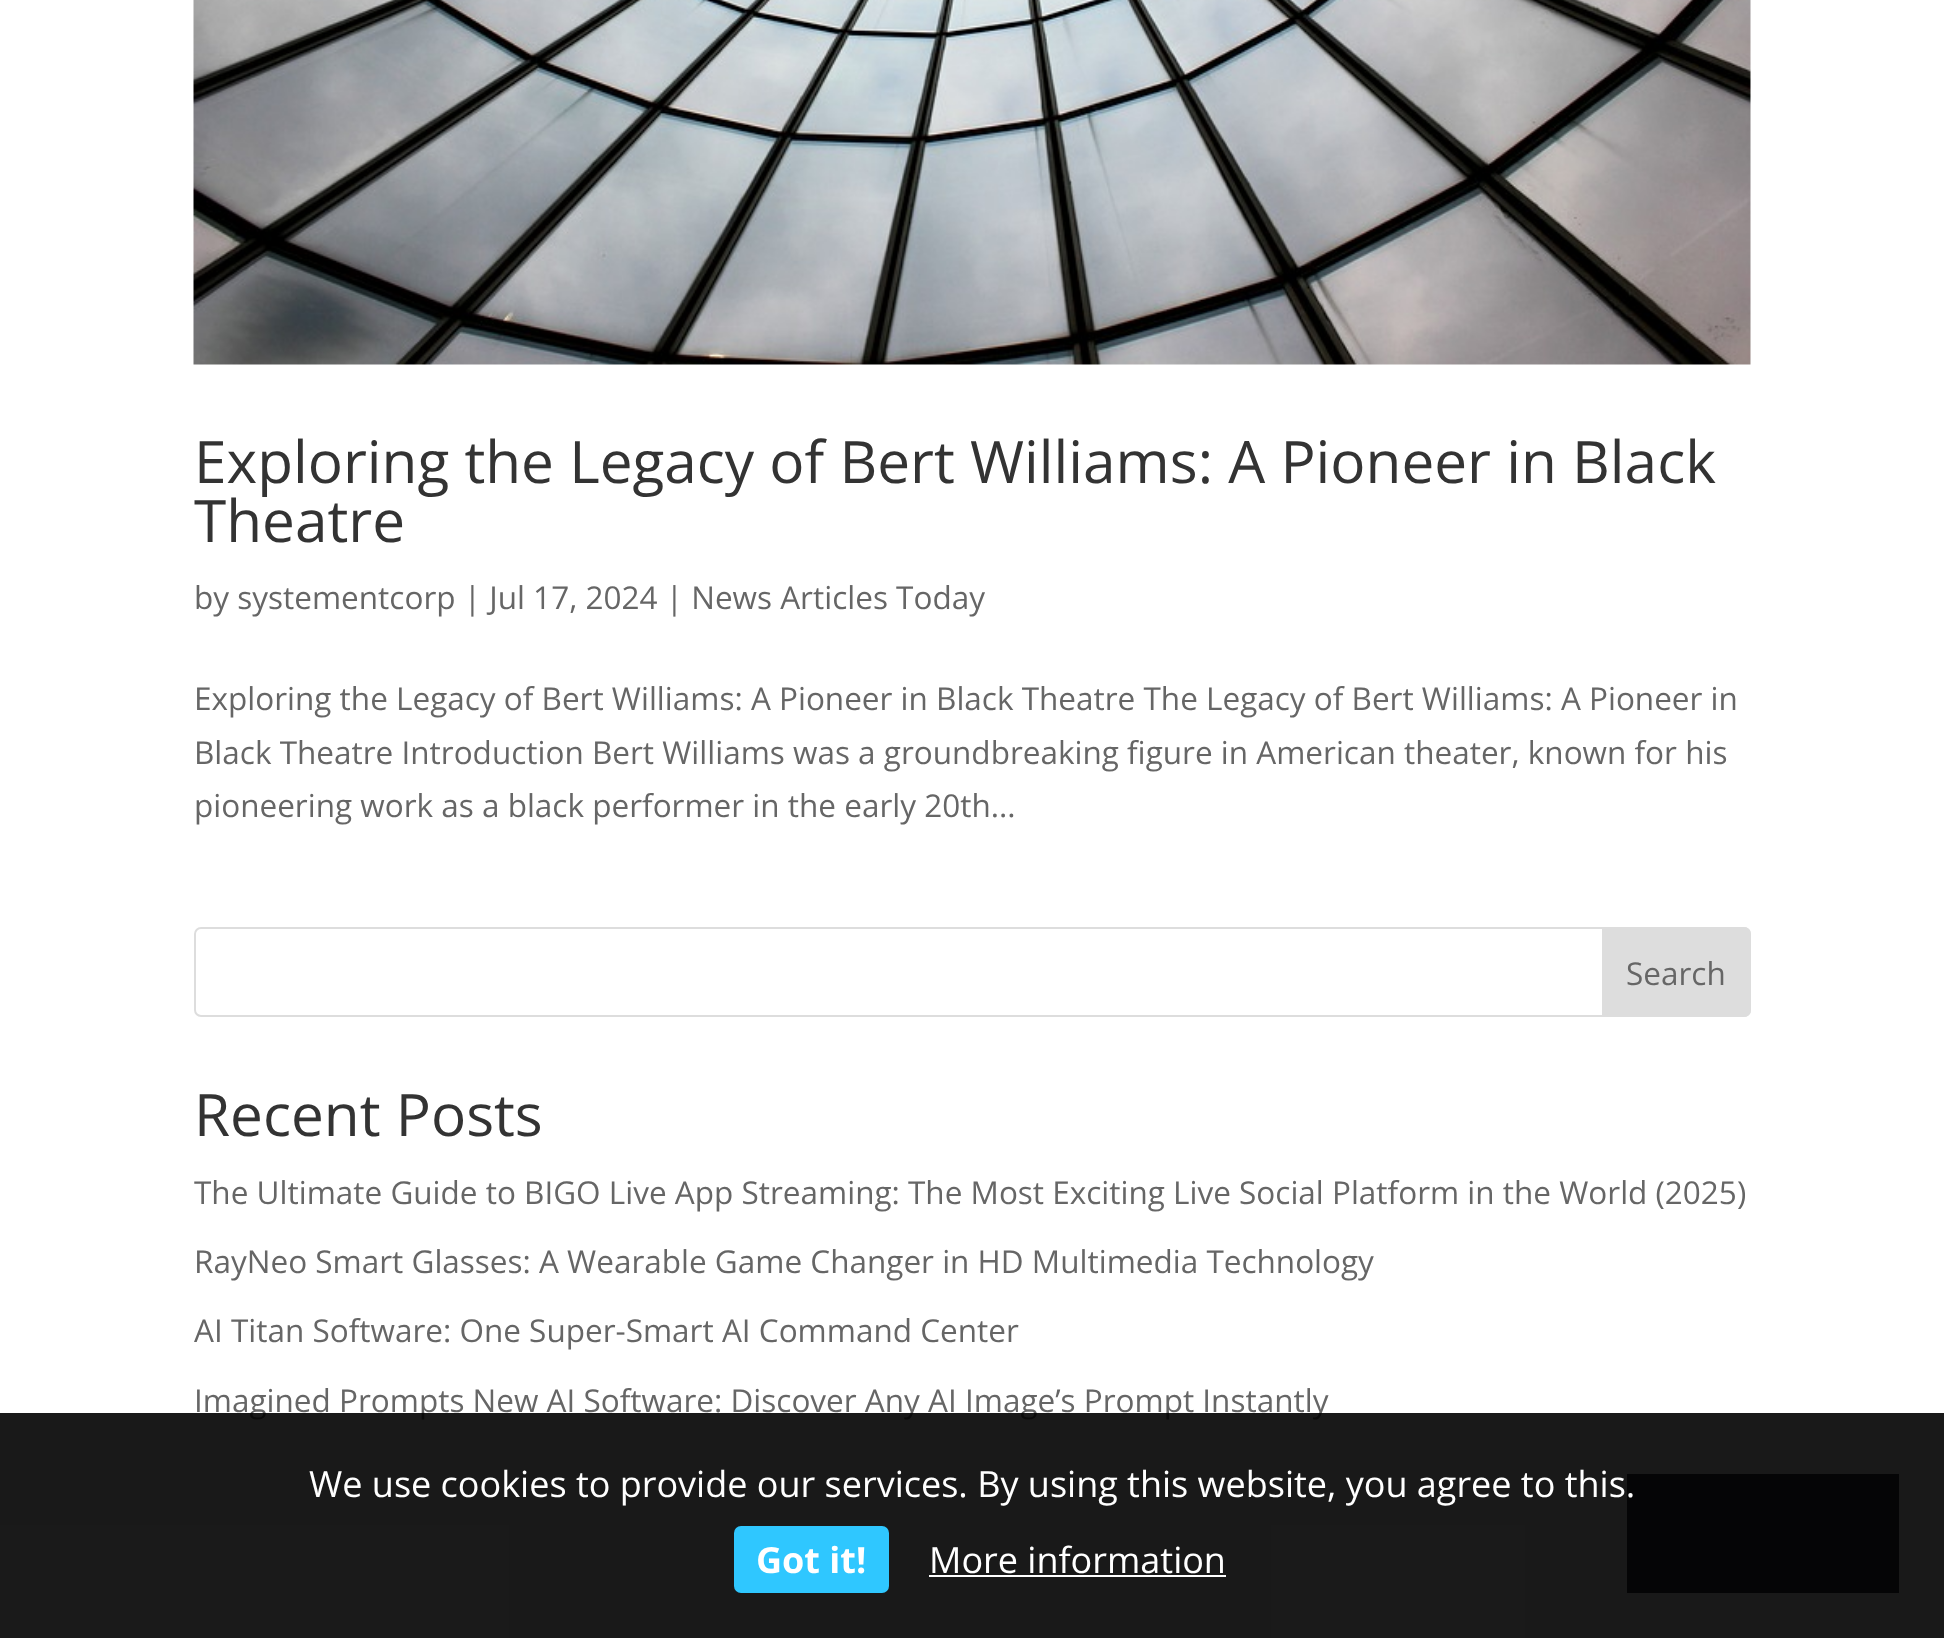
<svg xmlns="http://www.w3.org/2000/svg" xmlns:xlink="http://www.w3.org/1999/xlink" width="1944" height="1638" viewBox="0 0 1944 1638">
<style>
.cls-1{font:58.5px Open Sans;fill:#333333}
.cls-2{font:31.5px Open Sans;fill:#666666}
.cls-3{font:36px Open Sans;fill:#ffffff}
.cls-4{font:bold 36px Open Sans;fill:#ffffff}
</style>
<rect width="100%" height="100%" fill="#ffffff"/>
<image xlink:href="image0.png" x="193" y="0" width="1558" height="365"/>
<rect fill="none" stroke="#dddddd" stroke-width="2" x="195" y="928" width="1555" height="88" rx="6"/>
<path fill="#dddddd" stroke="#dddddd" stroke-width="2" d="M1603 928H1744C1747.5 928 1750 930.5 1750 934V1010C1750 1013.5 1747.5 1016 1744 1016H1603Z"/>
<rect fill="#32373c" x="1627" y="1474" width="272" height="119"/>
<text class="cls-1"><tspan x="194" y="483">Exploring the Legacy of Bert Williams: A Pioneer in Black</tspan><tspan x="194" y="542">Theatre</tspan></text>
<text class="cls-2" x="194" y="609">by systementcorp | Jul 17, 2024 | News Articles Today</text>
<text class="cls-2"><tspan x="194" y="710">Exploring the Legacy of Bert Williams: A Pioneer in Black Theatre The Legacy of Bert Williams: A Pioneer in</tspan><tspan x="194" y="764">Black Theatre Introduction Bert Williams was a groundbreaking figure in American theater, known for his</tspan><tspan x="194" y="817">pioneering work as a black performer in the early 20th...</tspan></text>
<text class="cls-2" x="1626" y="985">Search</text>
<text class="cls-1" x="194" y="1136">Recent Posts</text>
<text class="cls-2" x="194" y="1204">The Ultimate Guide to BIGO Live App Streaming: The Most Exciting Live Social Platform in the World (2025)</text>
<text class="cls-2" x="194" y="1273">RayNeo Smart Glasses: A Wearable Game Changer in HD Multimedia Technology</text>
<text class="cls-2" x="194" y="1342">AI Titan Software: One Super-Smart AI Command Center</text>
<text class="cls-2" x="194" y="1412">Imagined Prompts New AI Software: Discover Any AI Image’s Prompt Instantly</text>
<rect fill="#000000" fill-opacity="0.9" x="0" y="1413" width="1944" height="225"/>
<text class="cls-3" x="309" y="1497">We use cookies to provide our services. By using this website, you agree to this.</text>
<rect fill="#2fc7ff" x="734" y="1526" width="155" height="67" rx="7"/>
<text class="cls-4" x="756" y="1573">Got it!</text>
<text class="cls-3" x="929" y="1573">More information</text>
<rect fill="#ffffff" x="929" y="1575" width="297" height="2"/>
</svg>
